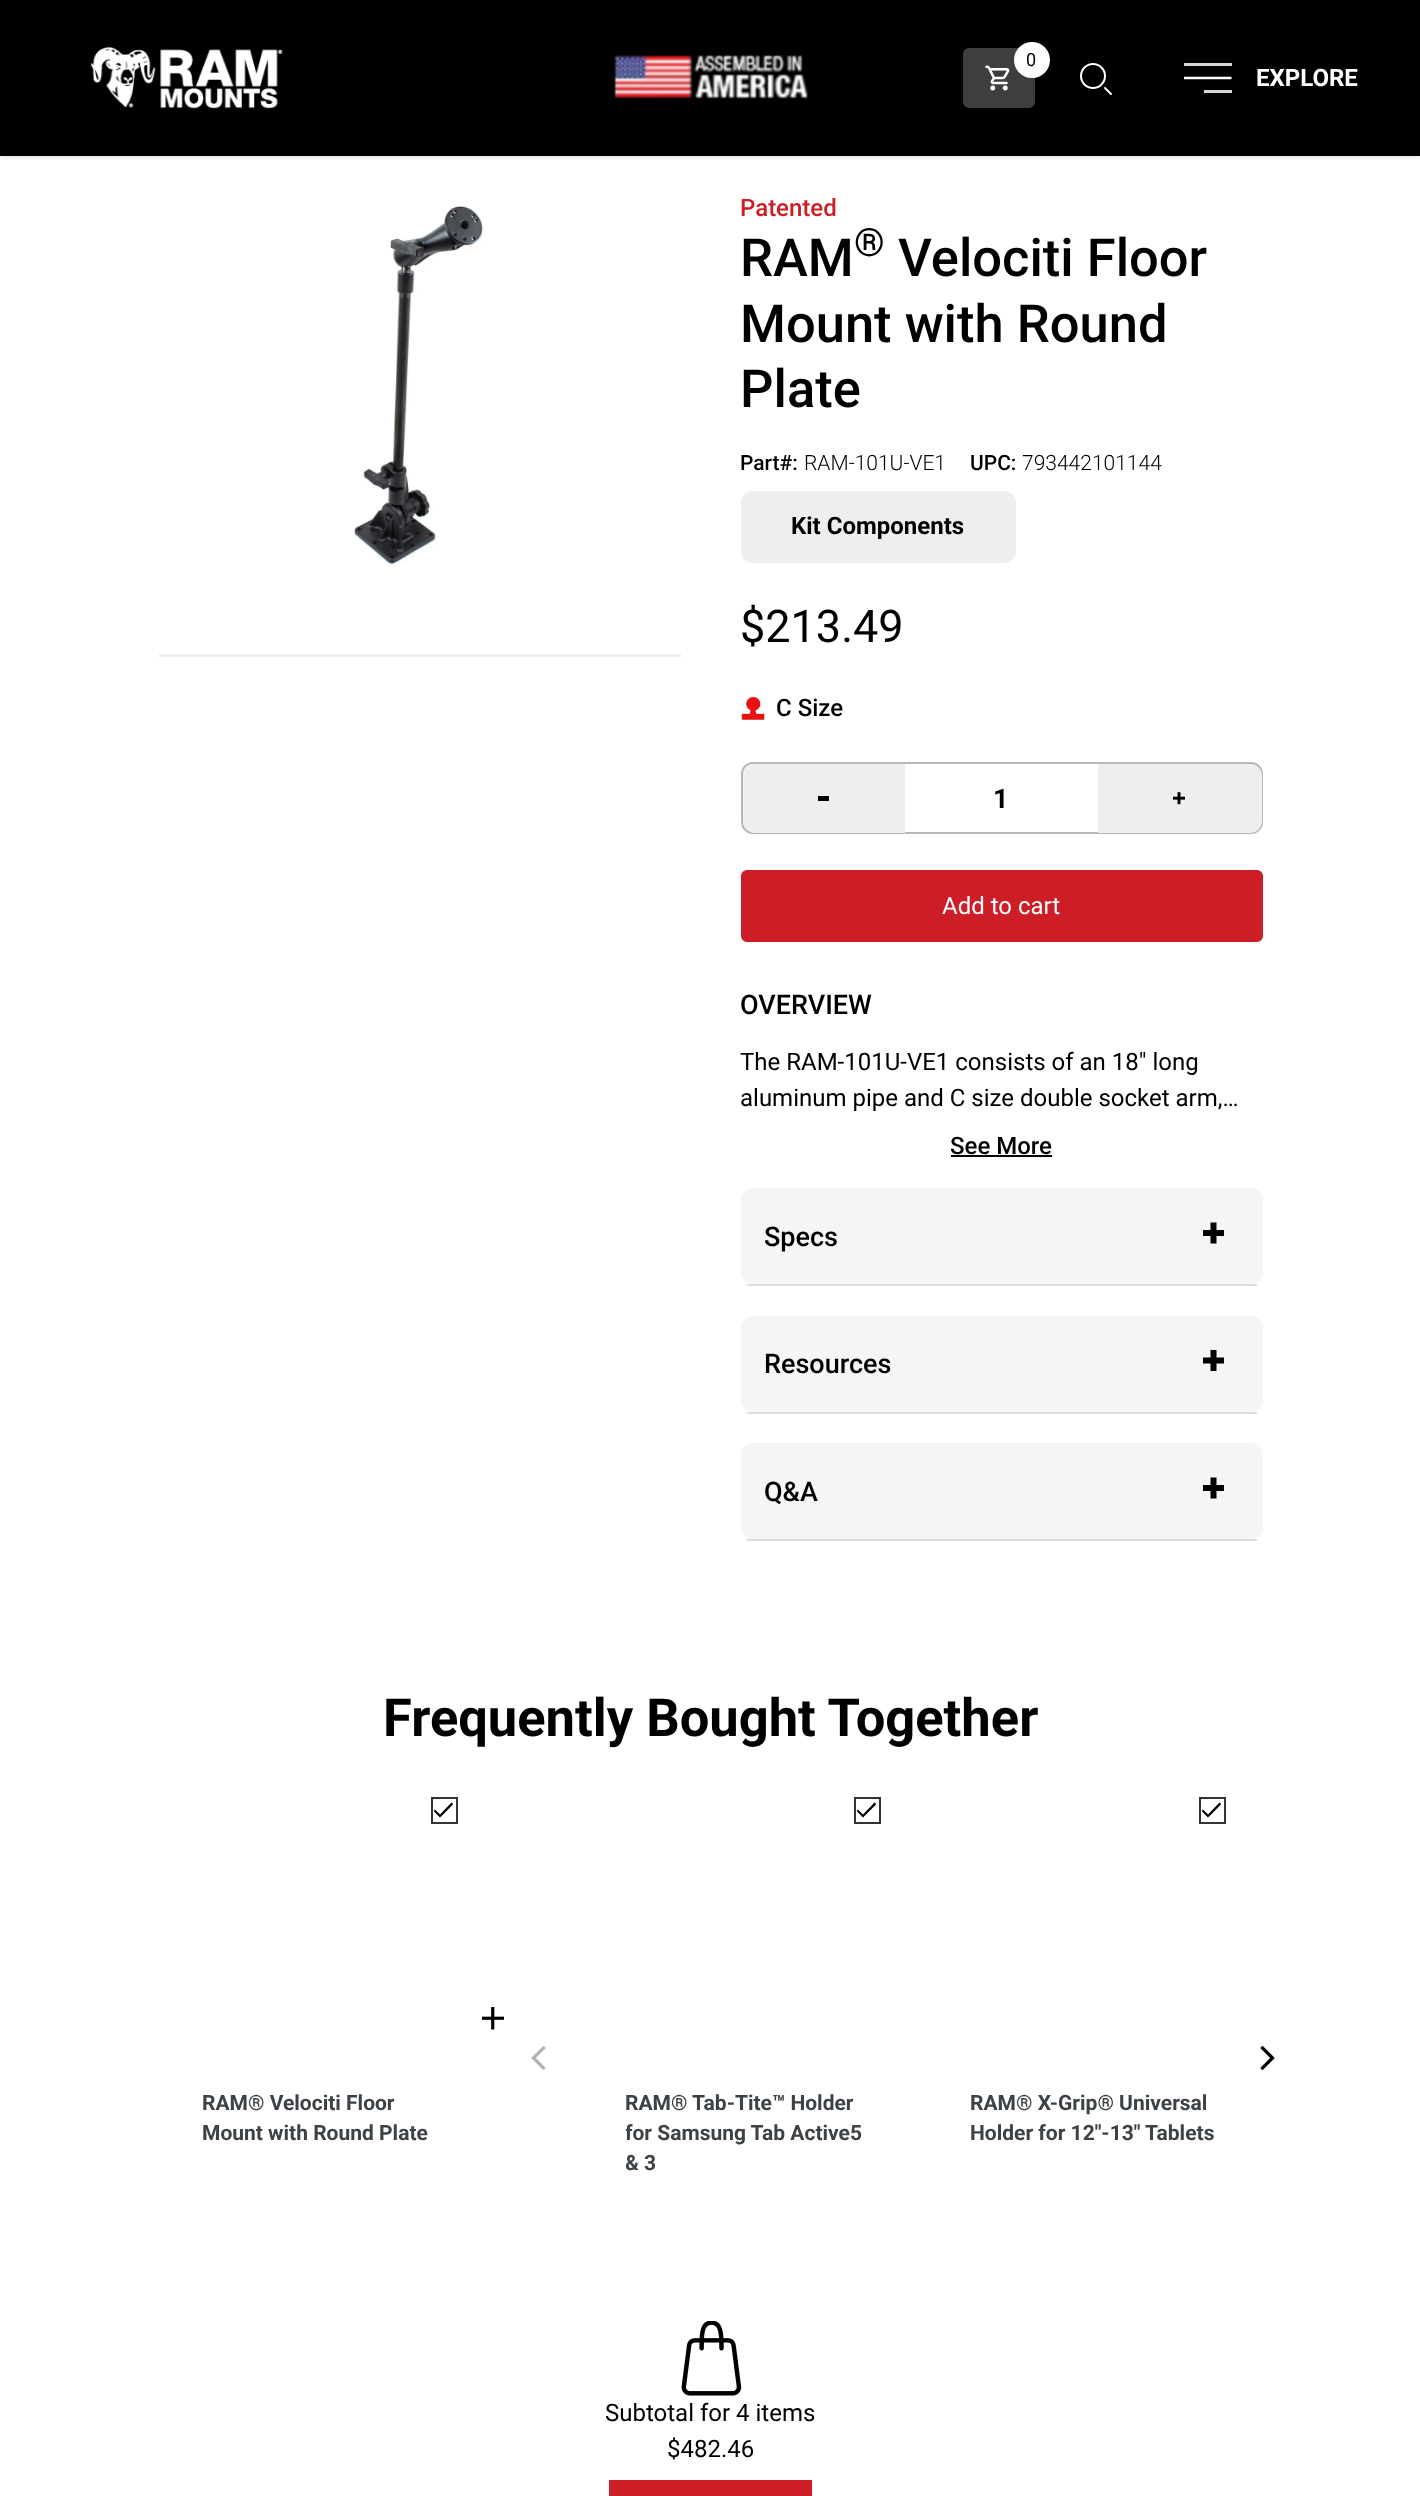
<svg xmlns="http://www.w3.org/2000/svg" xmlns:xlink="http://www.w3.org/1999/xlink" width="1420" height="2496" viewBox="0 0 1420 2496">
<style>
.cls-1{font:18px Roboto;fill:#000000}
.cls-2{font:bold 24px Roboto;fill:#ffffff}
.cls-3{font:500 24px Roboto;fill:#cd1e27}
.cls-4{font:500 52.5px Roboto;fill:#000000}
.cls-5{font:500 39px Roboto;fill:#000000}
.cls-6{font:500 21px Roboto;fill:#000000}
.cls-7{font:300 21px Roboto;fill:#000000}
.cls-8{font:bold 24px Roboto;fill:#000000}
.cls-9{font:45px Roboto;fill:#000000}
.cls-10{font:500 24px Roboto;fill:#000000}
.cls-11{font:bold 27px Roboto;letter-spacing:1px;fill:#000000}
.cls-12{font:24px Roboto;fill:#ffffff}
.cls-13{font:500 27px Roboto;fill:#000000}
.cls-14{font:24px Roboto;fill:#000000}
.cls-15{font:bold 52.5px Roboto;fill:#000000}
.cls-16{font:bold 21px Roboto;fill:#3d4246}
</style>
<defs>
<clipPath id="clip1"><rect x="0" y="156" width="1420" height="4"/></clipPath>
<clipPath id="clip2"><rect x="1184" y="63" width="48" height="30"/></clipPath>
<clipPath id="clip3"><rect x="434" y="1800" width="19" height="20"/></clipPath>
<clipPath id="clip4"><rect x="857" y="1800" width="19" height="20"/></clipPath>
<clipPath id="clip5"><rect x="1202" y="1800" width="19" height="20"/></clipPath>
<clipPath id="clip6"><rect x="626" y="2090" width="255" height="90"/></clipPath>
</defs>
<rect width="100%" height="100%" fill="#ffffff"/>
<rect fill="#000000" x="0" y="0" width="1420" height="156"/>
<g clip-path="url(#clip1)">
<rect fill="#000000" fill-opacity="0.1" filter="blur(2px)" x="0" y="2" width="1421" height="156"/>
</g>
<image xlink:href="image0.png" x="90" y="47" width="193" height="62"/>
<image xlink:href="image1.png" x="614" y="55" width="194" height="44"/>
<rect fill="#3e3e3e" stroke="#3e3e3e" stroke-width="3" x="964.5" y="49.5" width="69" height="57" rx="4.5"/>
<circle fill="#ffffff" cx="1032" cy="60" r="18"/>
<image xlink:href="image2.png" x="985" y="65" width="25" height="26"/>
<circle fill="none" stroke="#ffffff" stroke-width="2" cx="1093" cy="76" r="12"/>
<path fill="none" stroke="#ffffff" stroke-width="2" stroke-linecap="round" d="M1111 94L1105 88"/>
<rect fill="#d5d5d5" x="1184" y="63" width="48" height="3"/>
<g clip-path="url(#clip2)">
<path fill="none" stroke="#ffffff" stroke-width="2.5" d="M1183.5 78H1231.5"/>
</g>
<rect fill="#d5d5d5" x="1204" y="90" width="28" height="3"/>
<image xlink:href="image3.png" x="354" y="206" width="130" height="359"/>
<rect fill="#eeeeee" x="159" y="654" width="522" height="3"/>
<rect fill="#eeeeee" stroke="#eeeeee" stroke-width="3" x="742.5" y="492.5" width="272" height="69" rx="10.5"/>
<image xlink:href="image4.png" x="741" y="696" width="24" height="24"/>
<rect fill="none" stroke="#b7b7b7" stroke-width="2" x="742" y="763" width="520" height="70" rx="11"/>
<path fill="#eeeeee" d="M755 764H905V833H755C748.5 833 743 827.5 743 821V776C743 769.5 748.5 764 755 764Z"/>
<rect fill="#000000" x="818" y="796" width="11" height="5"/>
<path fill="#eeeeee" d="M1098 764H1250C1256.5 764 1262 769.5 1262 776V821C1262 827.5 1256.5 833 1250 833H1098Z"/>
<image xlink:href="image5.png" x="1173" y="792" width="12" height="13"/>
<rect fill="#cd1e27" stroke="#cd1e27" stroke-width="3" x="742.5" y="871.5" width="519" height="69" rx="4.5"/>
<rect fill="#000000" x="951" y="1155" width="101" height="2"/>
<path fill="#f5f5f5" d="M753 1188H1251C1258 1188 1263 1193 1263 1200V1274C1263 1279 1258 1284 1251 1284H753C746 1284 741 1279 741 1274V1200C741 1193 746 1188 753 1188Z"/>
<rect fill="#dddddd" x="747" y="1284" width="510" height="2"/>
<image xlink:href="image6.png" x="1203" y="1222" width="21" height="22"/>
<path fill="#f5f5f5" d="M753 1316H1251C1258 1316 1263 1321 1263 1328V1401C1263 1407 1258 1412 1251 1412H753C746 1412 741 1407 741 1401V1328C741 1321 746 1316 753 1316Z"/>
<rect fill="#dddddd" x="747" y="1412" width="510" height="2"/>
<image xlink:href="image7.png" x="1203" y="1350" width="21" height="21"/>
<path fill="#f5f5f5" d="M753 1443H1251C1258 1443 1263 1448 1263 1455V1528C1263 1534 1258 1539 1251 1539H753C746 1539 741 1534 741 1528V1455C741 1448 746 1443 753 1443Z"/>
<rect fill="#dddddd" x="747" y="1539" width="510" height="2"/>
<image xlink:href="image6.png" x="1203" y="1477" width="21" height="22"/>
<image xlink:href="image8.png" x="482" y="2007" width="22" height="23"/>
<rect fill="none" stroke="#333333" stroke-width="2" x="432" y="1798" width="25" height="25"/>
<g clip-path="url(#clip3)">
<path fill="#000000" d="M440 1814.5L451.5 1802.5L453.5 1804L440 1817.5L433.5 1811L435 1809.5Z"/>
</g>
<image xlink:href="image9.png" x="531" y="2046" width="15" height="24"/>
<image xlink:href="image10.png" x="1260" y="2046" width="15" height="24"/>
<rect fill="none" stroke="#333333" stroke-width="2" x="855" y="1798" width="25" height="25"/>
<g clip-path="url(#clip4)">
<path fill="#000000" d="M863 1814.5L874.5 1802.5L876.5 1804L863 1817.5L856.5 1811L858 1809.5Z"/>
</g>
<rect fill="none" stroke="#333333" stroke-width="2" x="1200" y="1798" width="25" height="25"/>
<g clip-path="url(#clip5)">
<path fill="#000000" d="M1208 1814.5L1219.5 1802.5L1221.5 1804L1208 1817.5L1201.5 1811L1203 1809.5Z"/>
</g>
<image xlink:href="image11.png" x="681" y="2321" width="61" height="75"/>
<rect fill="#cd1e27" x="609" y="2480" width="203" height="16"/>
<text class="cls-1" x="1026" y="66">0</text>
<text class="cls-2" x="1256" y="86">EXPLORE</text>
<text class="cls-3" x="740" y="216">Patented</text>
<text class="cls-4" x="740" y="276">RAM</text>
<text class="cls-5" x="854" y="256">®</text>
<text class="cls-4" x="898" y="276">Velociti Floor</text>
<text class="cls-4"><tspan x="740" y="342">Mount with Round</tspan><tspan x="740" y="407">Plate</tspan></text>
<text class="cls-6" x="740" y="470">Part#:</text>
<text class="cls-7" x="804" y="470">RAM-101U-VE1</text>
<text class="cls-6" x="970" y="470">UPC:</text>
<text class="cls-7" x="1022" y="470">793442101144</text>
<text class="cls-8" x="791" y="534">Kit Components</text>
<text class="cls-9" x="740" y="642">$213.49</text>
<text class="cls-10" x="776" y="716">C Size</text>
<text class="cls-11" x="993" y="808">1</text>
<text class="cls-12" x="942" y="914">Add to cart</text>
<text class="cls-13" x="740" y="1014">OVERVIEW</text>
<text class="cls-14"><tspan x="740" y="1070">The RAM-101U-VE1 consists of an 18" long</tspan><tspan x="740" y="1106">aluminum pipe and C size double socket arm,…</tspan></text>
<text class="cls-10" x="950" y="1154">See More</text>
<text class="cls-13" x="764" y="1246">Specs</text>
<text class="cls-13" x="764" y="1373">Resources</text>
<text class="cls-13" x="764" y="1501">Q&amp;A</text>
<text class="cls-15" x="383" y="1736">Frequently Bought Together</text>
<text class="cls-16"><tspan x="202" y="2110">RAM® Velociti Floor</tspan><tspan x="202" y="2140">Mount with Round Plate</tspan></text>
<text class="cls-16" x="625" y="2110">RAM® Tab-Tite™ Holder</text>
<g clip-path="url(#clip6)">
<text class="cls-16"><tspan x="625" y="2140">for Samsung Tab Active5</tspan><tspan x="625" y="2170">&amp; 3</tspan></text>
</g>
<text class="cls-16"><tspan x="970" y="2110">RAM® X-Grip® Universal</tspan><tspan x="970" y="2140">Holder for 12"-13" Tablets</tspan></text>
<text class="cls-14" x="605" y="2421">Subtotal for 4 items</text>
<text class="cls-14" x="667" y="2457">$482.46</text>
</svg>
